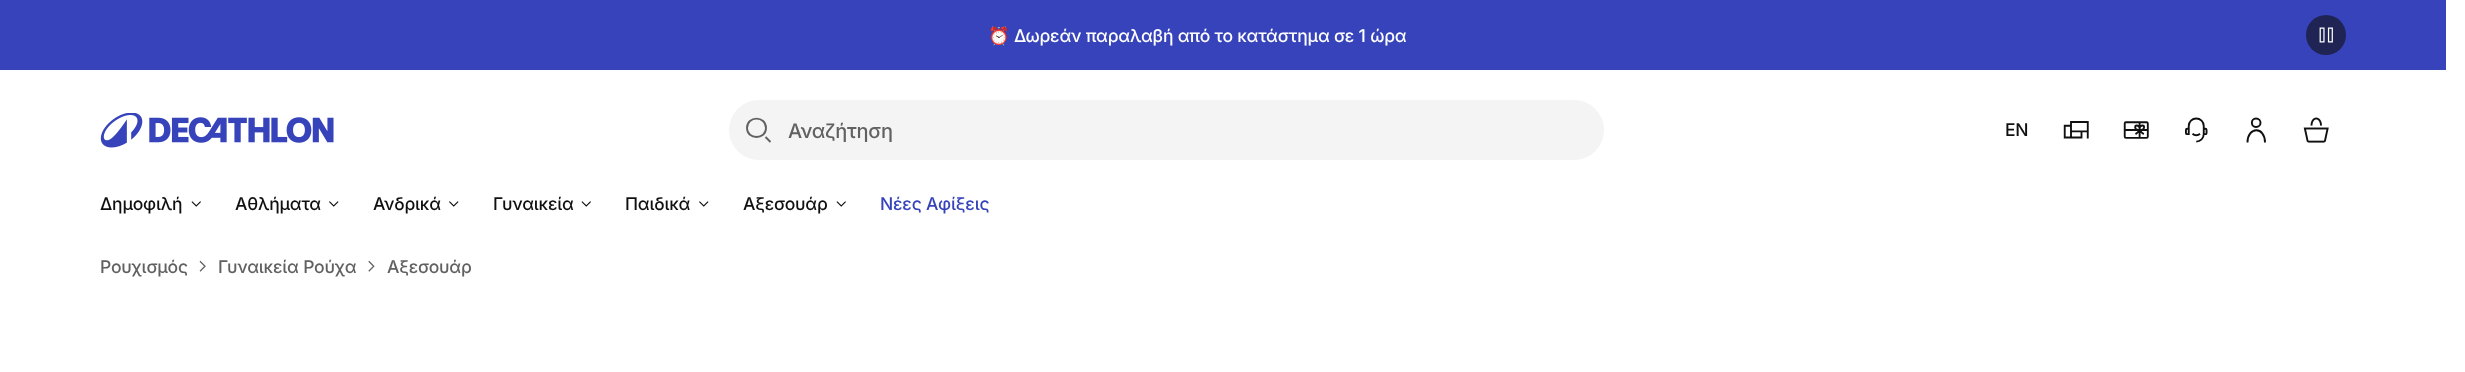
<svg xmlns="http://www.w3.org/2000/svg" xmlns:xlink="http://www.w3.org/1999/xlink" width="2465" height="372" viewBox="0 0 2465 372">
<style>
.cls-1{font:17.5px Noto Color Emoji;letter-spacing:-0.2px;fill:#ffffff}
.cls-2{font:500 17.5px Inter;letter-spacing:-0.2px;fill:#ffffff}
.cls-3{font:500 20px Inter;letter-spacing:-0.25px;fill:#616161}
.cls-4{font:500 17.5px Inter;letter-spacing:-0.2px;fill:#101010}
.cls-5{font:500 17.5px Inter;letter-spacing:-0.2px;fill:#3643ba}
.cls-6{font:500 17.5px Inter;letter-spacing:-0.2px;fill:#616161}
</style>
<rect width="100%" height="100%" fill="#ffffff"/>
<rect fill="#3643ba" x="0" y="0" width="2446" height="70"/>
<circle fill="#1f2454" cx="2326" cy="35" r="20"/>
<image xlink:href="image0.png" x="2319" y="27" width="14" height="16"/>
<image xlink:href="image1.png" x="100" y="113" width="234" height="35"/>
<rect fill="#f5f4f5" x="729" y="100" width="875" height="60" rx="30"/>
<path fill="none" stroke="#616161" stroke-width="1.9" d="M770.5 142L765.5 137M766 128C766 140 747 140 747 128C747 115.5 766 115.5 766 128Z"/>
<image xlink:href="image2.png" x="2063" y="121" width="26" height="18"/>
<image xlink:href="image3.png" x="2123" y="121" width="26" height="18"/>
<image xlink:href="image4.png" x="2185" y="117" width="23" height="26"/>
<path fill="none" stroke="#101010" stroke-width="1.9" d="M2247.5 142.5C2247.5 126.5 2265 126 2265 142.5M2256 118.5C2250.5 118.5 2250.5 127 2256 127C2262 127 2262 118.5 2256 118.5Z"/>
<image xlink:href="image5.png" x="2303" y="117" width="26" height="26"/>
<image xlink:href="image6.png" x="191" y="201" width="10" height="6"/>
<image xlink:href="image7.png" x="329" y="201" width="10" height="6"/>
<image xlink:href="image7.png" x="449" y="201" width="10" height="6"/>
<image xlink:href="image6.png" x="581" y="201" width="10" height="6"/>
<image xlink:href="image7.png" x="699" y="201" width="10" height="6"/>
<image xlink:href="image6.png" x="836" y="201" width="10" height="6"/>
<image xlink:href="image8.png" x="199" y="260" width="7" height="12"/>
<image xlink:href="image9.png" x="368" y="260" width="7" height="12"/>
<text class="cls-1" x="988" y="42">⏰</text>
<text class="cls-2" x="1014" y="42">Δωρεάν παραλαβή από το κατάστημα σε 1 ώρα</text>
<text class="cls-3" x="788" y="138">Αναζήτηση</text>
<text class="cls-4" x="2005" y="136">EN</text>
<text class="cls-4" x="100" y="210">Δημοφιλή</text>
<text class="cls-4" x="235" y="210">Αθλήματα</text>
<text class="cls-4" x="373" y="210">Ανδρικά</text>
<text class="cls-4" x="493" y="210">Γυναικεία</text>
<text class="cls-4" x="625" y="210">Παιδικά</text>
<text class="cls-4" x="743" y="210">Αξεσουάρ</text>
<text class="cls-5" x="880" y="210">Νέες Αφίξεις</text>
<text class="cls-6" x="100" y="273">Ρουχισμός</text>
<text class="cls-6" x="218" y="273">Γυναικεία Ρούχα</text>
<text class="cls-6" x="387" y="273">Αξεσουάρ</text>
</svg>
